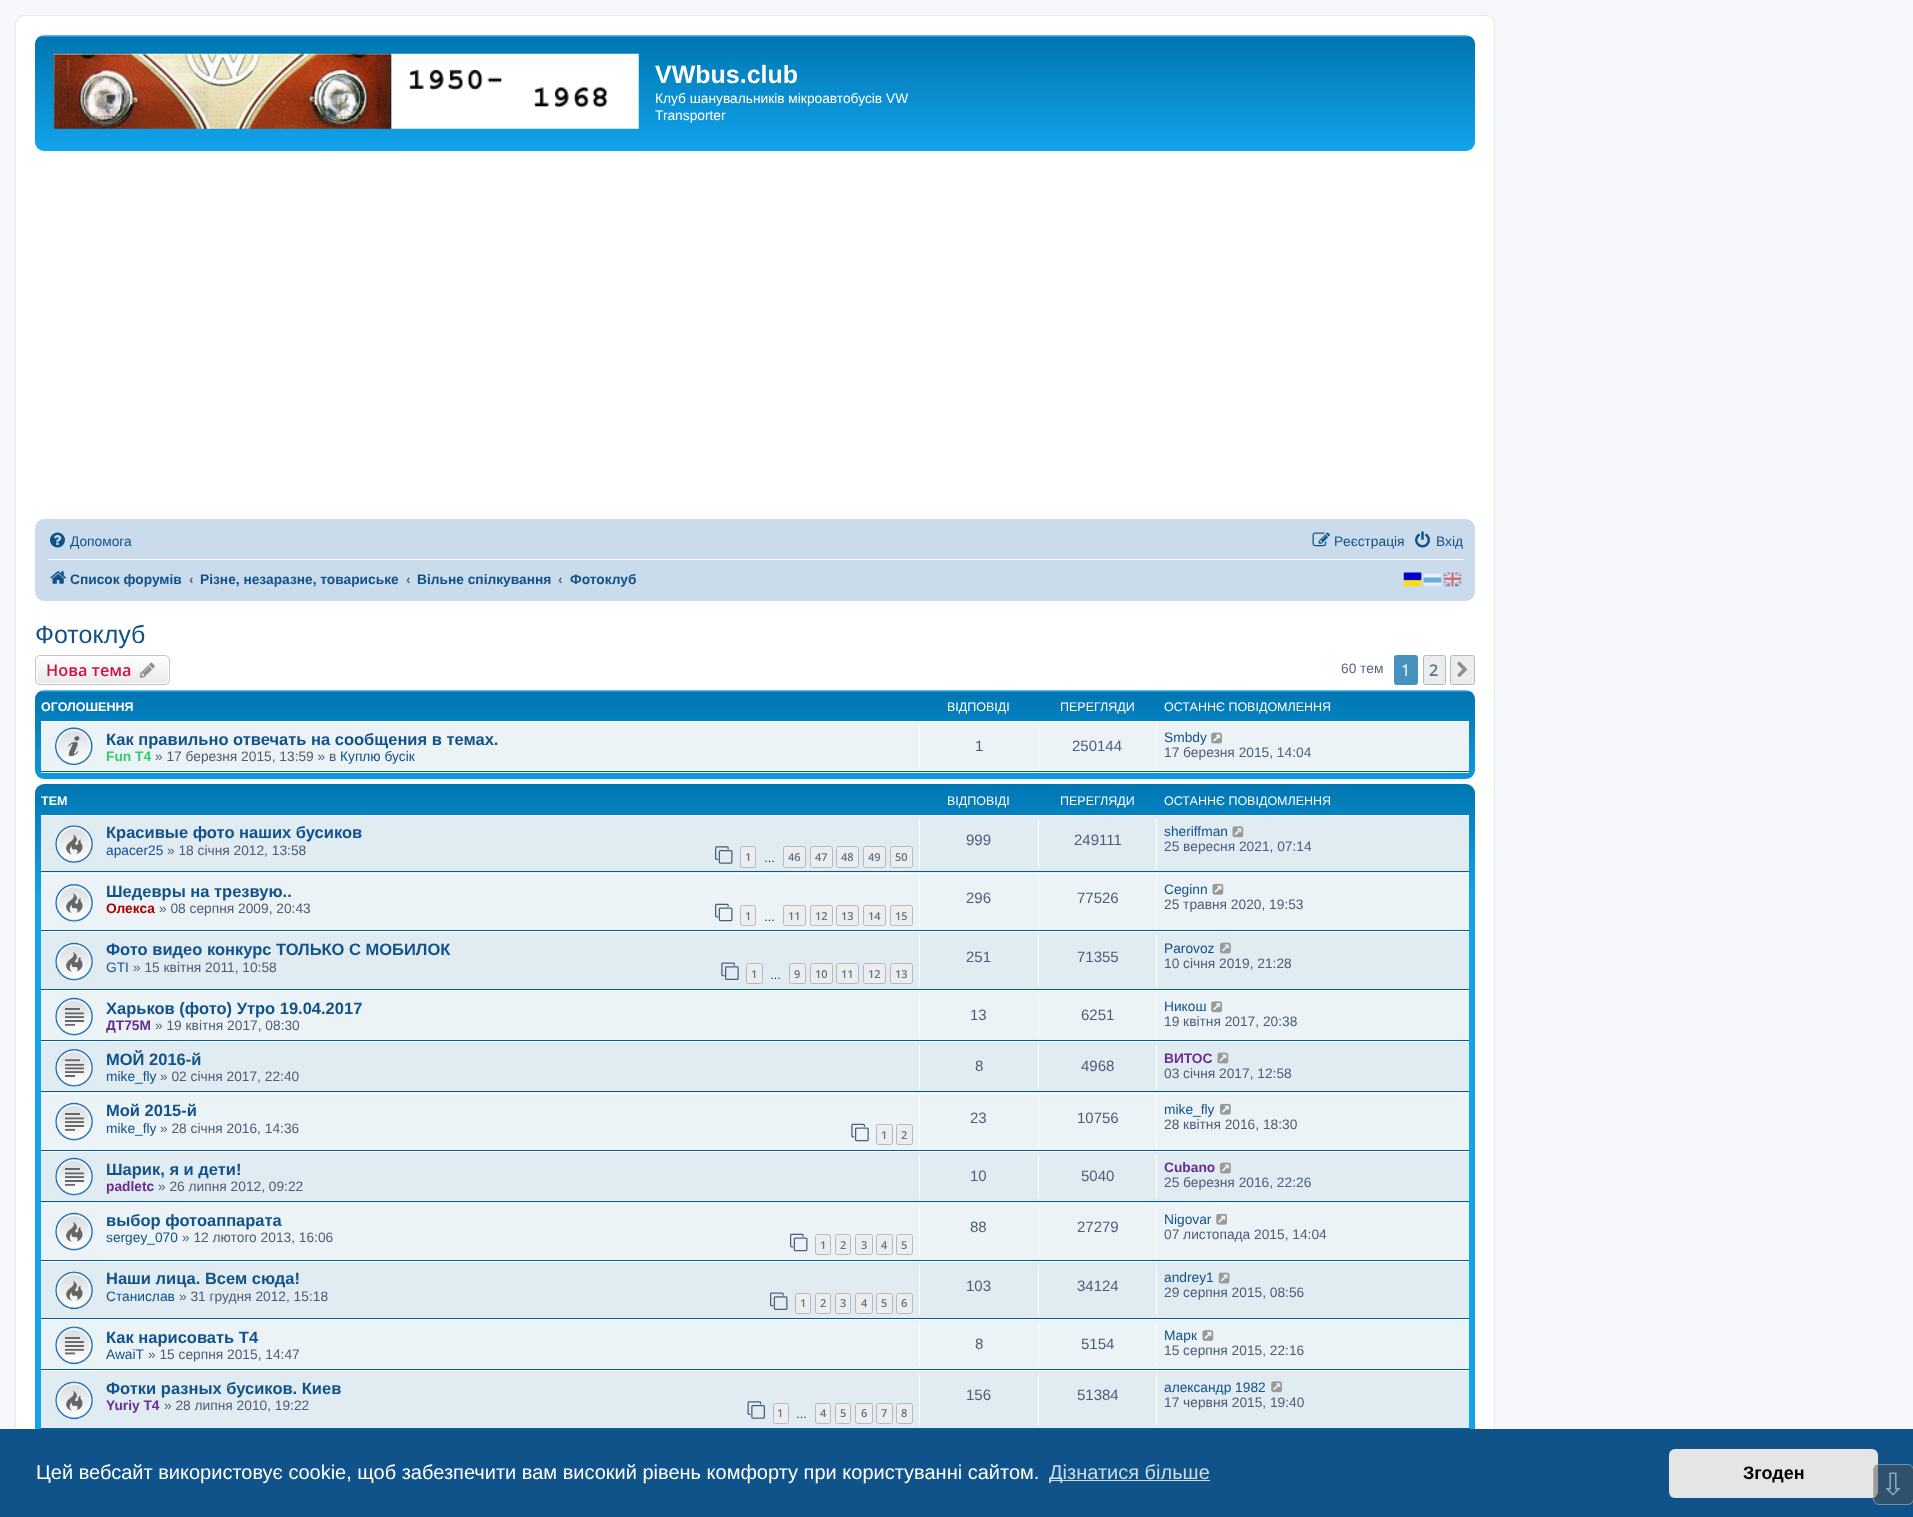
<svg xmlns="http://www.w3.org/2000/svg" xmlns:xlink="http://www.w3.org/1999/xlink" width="1913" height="1517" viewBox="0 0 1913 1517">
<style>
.cls-1{font:bold 25px Liberation Sans;fill:#ffffff}
.cls-2{font:13.75px Liberation Sans;fill:#ffffff}
.cls-3{font:13.75px Liberation Sans;fill:#105289}
.cls-4{font:bold 13.75px Liberation Sans;fill:#105289}
.cls-5{font:bold 13.75px Liberation Sans;fill:#536482}
.cls-6{font:25px Liberation Sans;fill:#105289}
.cls-7{font:600 16.25px Open Sans;fill:#d31141}
.cls-8{font:13.75px Liberation Sans;fill:#536482}
.cls-9{font:16.25px Open Sans;fill:#ffffff}
.cls-10{font:600 16.25px Open Sans;fill:#5c758c}
.cls-11{font:bold 12.5px Liberation Sans;fill:#ffffff}
.cls-12{font:12.5px Liberation Sans;fill:#ffffff}
.cls-13{font:bold 16.5px Liberation Sans;fill:#105289}
.cls-14{font:bold 13.75px Liberation Sans;fill:#33cc66}
.cls-15{font:13.75px Liberation Sans;fill:#4c5d77}
.cls-16{font:15px Liberation Sans;fill:#4c5d77}
.cls-17{font:600 11px Open Sans;fill:#5c758c}
.cls-18{font:11px Liberation Sans;fill:#000000}
.cls-19{font:bold 13.75px Liberation Sans;fill:#aa0000}
.cls-20{font:bold 13.75px Liberation Sans;fill:#662d91}
.cls-21{font:20px Liberation Sans;fill:#ffffff}
.cls-22{font:20px Liberation Sans;fill:#cfdde8}
.cls-23{font:bold 18px Liberation Sans;fill:#000000}
.cls-24{font:31px DejaVu Sans;fill:#87a9c5}
</style>
<defs>
<linearGradient id="g1" gradientUnits="userSpaceOnUse" x1="755" y1="35" x2="755" y2="151"><stop offset="0" stop-color="#6aceff"/><stop offset="0.02" stop-color="#0076b1"/><stop offset="0.99" stop-color="#12a3eb"/><stop offset="1" stop-color="#12a3eb"/></linearGradient>
<clipPath id="clip1"><rect x="35" y="655" width="135" height="30" rx="5"/></clipPath>
<linearGradient id="g2" gradientUnits="userSpaceOnUse" x1="103" y1="656" x2="103" y2="684"><stop offset="0" stop-color="#ffffff"/><stop offset="1" stop-color="#e9e9e9"/></linearGradient>
<linearGradient id="g3" gradientUnits="userSpaceOnUse" x1="755" y1="690" x2="755" y2="805"><stop offset="0" stop-color="#6aceff"/><stop offset="0.02" stop-color="#0076b1"/><stop offset="1" stop-color="#12a3eb"/></linearGradient>
<linearGradient id="g4" gradientUnits="userSpaceOnUse" x1="755" y1="784" x2="755" y2="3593"><stop offset="0" stop-color="#6aceff"/><stop offset="0" stop-color="#0076b1"/><stop offset="0.04" stop-color="#12a3eb"/><stop offset="1" stop-color="#12a3eb"/></linearGradient>
</defs>
<rect width="100%" height="100%" fill="#f5f7fa"/>
<rect fill="#ffffff" stroke="#e6e9ed" x="15.5" y="15.5" width="1479" height="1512" rx="9.5"/>
<rect fill="url(#g1)" x="35" y="35" width="1440" height="116" rx="9"/>
<image xlink:href="image0.png" x="53" y="53" width="586" height="76"/>
<rect fill="#cadceb" x="35" y="519" width="1440" height="82" rx="9"/>
<image xlink:href="image1.png" x="50" y="532" width="15" height="16"/>
<image xlink:href="image2.png" x="1312" y="532" width="18" height="15"/>
<image xlink:href="image3.png" x="1415" y="531" width="15" height="17"/>
<rect fill="#ffffff" x="48" y="559" width="1415" height="1"/>
<image xlink:href="image4.png" x="50" y="571" width="16" height="13"/>
<image xlink:href="image5.png" x="1403" y="572" width="19" height="15"/>
<image xlink:href="image6.png" x="1423" y="573" width="19" height="14"/>
<image xlink:href="image7.png" x="1443" y="572" width="19" height="15"/>
<g clip-path="url(#clip1)">
<rect fill="url(#g2)" x="35" y="656" width="135" height="28"/>
</g>
<rect fill="none" stroke="#ffffff" x="36.5" y="656.5" width="132" height="27" rx="3.5"/>
<rect fill="none" stroke="#c7c3bf" x="35.5" y="655.5" width="134" height="29" rx="4.5"/>
<image xlink:href="image8.png" x="140" y="662" width="15" height="16"/>
<rect fill="#4692bf" stroke="#4692bf" x="1394.5" y="655.5" width="23" height="29" rx="2"/>
<rect fill="#ecedee" stroke="#b4bac0" x="1423.5" y="655.5" width="22" height="29" rx="2"/>
<rect fill="#ecedee" stroke="#b4bac0" x="1450.5" y="655.5" width="24" height="29" rx="2"/>
<image xlink:href="image9.png" x="1457" y="661" width="11" height="17"/>
<rect fill="url(#g3)" x="35" y="690" width="1440" height="89" rx="9"/>
<rect fill="#ecf3f7" x="41" y="722" width="1428" height="51"/>
<rect fill="#ffffff" x="41" y="721" width="1428" height="1"/>
<rect fill="#00608f" x="41" y="771" width="1428" height="1"/>
<image xlink:href="image10.png" x="55" y="727" width="38" height="38"/>
<rect fill="#ffffff" x="919" y="725" width="1" height="44"/>
<rect fill="#ffffff" x="1038" y="725" width="1" height="44"/>
<rect fill="#ffffff" x="1156" y="725" width="1" height="44"/>
<image xlink:href="image11.png" x="1211" y="732" width="11" height="12"/>
<rect fill="url(#g4)" x="35" y="784" width="1440" height="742" rx="9"/>
<rect fill="#e1ebf2" x="41" y="816" width="1428" height="57"/>
<rect fill="#ffffff" x="41" y="815" width="1428" height="1"/>
<rect fill="#00608f" x="41" y="871" width="1428" height="1"/>
<image xlink:href="image12.png" x="55" y="825" width="38" height="38"/>
<image xlink:href="image13.png" x="715" y="846" width="18" height="18"/>
<rect fill="#ecedee" stroke="#b4bac0" x="740.5" y="846.5" width="15" height="21" rx="2"/>
<rect fill="#ecedee" stroke="#b4bac0" x="783.5" y="846.5" width="22" height="21" rx="2"/>
<rect fill="#ecedee" stroke="#b4bac0" x="810.5" y="846.5" width="22" height="21" rx="2"/>
<rect fill="#ecedee" stroke="#b4bac0" x="836.5" y="846.5" width="22" height="21" rx="2"/>
<rect fill="#ecedee" stroke="#b4bac0" x="863.5" y="846.5" width="22" height="21" rx="2"/>
<rect fill="#ecedee" stroke="#b4bac0" x="890.5" y="846.5" width="22" height="21" rx="2"/>
<rect fill="#ffffff" x="919" y="819" width="1" height="50"/>
<rect fill="#ffffff" x="1038" y="819" width="1" height="50"/>
<rect fill="#ffffff" x="1156" y="819" width="1" height="50"/>
<image xlink:href="image14.png" x="1232" y="826" width="12" height="12"/>
<rect fill="#ecf3f7" x="41" y="874" width="1428" height="56"/>
<rect fill="#ffffff" x="41" y="873" width="1428" height="1"/>
<rect fill="#00608f" x="41" y="930" width="1428" height="1"/>
<image xlink:href="image15.png" x="55" y="883" width="38" height="39"/>
<image xlink:href="image16.png" x="715" y="903" width="18" height="19"/>
<rect fill="#ecedee" stroke="#b4bac0" x="740.5" y="905.5" width="15" height="20" rx="2"/>
<rect fill="#ecedee" stroke="#b4bac0" x="783.5" y="905.5" width="22" height="20" rx="2"/>
<rect fill="#ecedee" stroke="#b4bac0" x="810.5" y="905.5" width="22" height="20" rx="2"/>
<rect fill="#ecedee" stroke="#b4bac0" x="836.5" y="905.5" width="22" height="20" rx="2"/>
<rect fill="#ecedee" stroke="#b4bac0" x="863.5" y="905.5" width="22" height="20" rx="2"/>
<rect fill="#ecedee" stroke="#b4bac0" x="890.5" y="905.5" width="22" height="20" rx="2"/>
<rect fill="#ffffff" x="919" y="876" width="1" height="52"/>
<rect fill="#ffffff" x="1038" y="876" width="1" height="52"/>
<rect fill="#ffffff" x="1156" y="876" width="1" height="52"/>
<image xlink:href="image17.png" x="1212" y="883" width="12" height="12"/>
<rect fill="#e1ebf2" x="41" y="932" width="1428" height="57"/>
<rect fill="#ffffff" x="41" y="931" width="1428" height="1"/>
<rect fill="#00608f" x="41" y="989" width="1428" height="1"/>
<image xlink:href="image18.png" x="55" y="942" width="38" height="39"/>
<image xlink:href="image19.png" x="721" y="962" width="18" height="18"/>
<rect fill="#ecedee" stroke="#b4bac0" x="746.5" y="963.5" width="16" height="20" rx="2"/>
<rect fill="#ecedee" stroke="#b4bac0" x="789.5" y="963.5" width="16" height="20" rx="2"/>
<rect fill="#ecedee" stroke="#b4bac0" x="810.5" y="963.5" width="22" height="20" rx="2"/>
<rect fill="#ecedee" stroke="#b4bac0" x="836.5" y="963.5" width="22" height="20" rx="2"/>
<rect fill="#ecedee" stroke="#b4bac0" x="863.5" y="963.5" width="22" height="20" rx="2"/>
<rect fill="#ecedee" stroke="#b4bac0" x="890.5" y="963.5" width="22" height="20" rx="2"/>
<rect fill="#ffffff" x="919" y="935" width="1" height="51"/>
<rect fill="#ffffff" x="1038" y="935" width="1" height="51"/>
<rect fill="#ffffff" x="1156" y="935" width="1" height="51"/>
<image xlink:href="image20.png" x="1220" y="942" width="11" height="12"/>
<rect fill="#ecf3f7" x="41" y="991" width="1428" height="49"/>
<rect fill="#ffffff" x="41" y="990" width="1428" height="1"/>
<rect fill="#00608f" x="41" y="1040" width="1428" height="1"/>
<image xlink:href="image21.png" x="55" y="997" width="38" height="39"/>
<rect fill="#ffffff" x="919" y="994" width="1" height="44"/>
<rect fill="#ffffff" x="1038" y="994" width="1" height="44"/>
<rect fill="#ffffff" x="1156" y="994" width="1" height="44"/>
<image xlink:href="image22.png" x="1211" y="1001" width="11" height="12"/>
<rect fill="#e1ebf2" x="41" y="1042" width="1428" height="51"/>
<rect fill="#ffffff" x="41" y="1041" width="1428" height="1"/>
<rect fill="#00608f" x="41" y="1091" width="1428" height="1"/>
<image xlink:href="image23.png" x="55" y="1048" width="38" height="39"/>
<rect fill="#ffffff" x="919" y="1045" width="1" height="44"/>
<rect fill="#ffffff" x="1038" y="1045" width="1" height="44"/>
<rect fill="#ffffff" x="1156" y="1045" width="1" height="44"/>
<image xlink:href="image24.png" x="1217" y="1052" width="12" height="12"/>
<rect fill="#ecf3f7" x="41" y="1094" width="1428" height="56"/>
<rect fill="#ffffff" x="41" y="1093" width="1428" height="1"/>
<rect fill="#00608f" x="41" y="1150" width="1428" height="1"/>
<image xlink:href="image21.png" x="55" y="1102" width="38" height="39"/>
<image xlink:href="image25.png" x="851" y="1123" width="18" height="19"/>
<rect fill="#ecedee" stroke="#b4bac0" x="876.5" y="1124.5" width="16" height="20" rx="2"/>
<rect fill="#ecedee" stroke="#b4bac0" x="896.5" y="1124.5" width="16" height="20" rx="2"/>
<rect fill="#ffffff" x="919" y="1096" width="1" height="52"/>
<rect fill="#ffffff" x="1038" y="1096" width="1" height="52"/>
<rect fill="#ffffff" x="1156" y="1096" width="1" height="52"/>
<image xlink:href="image26.png" x="1220" y="1103" width="11" height="12"/>
<rect fill="#e1ebf2" x="41" y="1152" width="1428" height="51"/>
<rect fill="#ffffff" x="41" y="1151" width="1428" height="1"/>
<rect fill="#00608f" x="41" y="1201" width="1428" height="1"/>
<image xlink:href="image27.png" x="55" y="1157" width="38" height="39"/>
<rect fill="#ffffff" x="919" y="1155" width="1" height="44"/>
<rect fill="#ffffff" x="1038" y="1155" width="1" height="44"/>
<rect fill="#ffffff" x="1156" y="1155" width="1" height="44"/>
<image xlink:href="image20.png" x="1220" y="1162" width="11" height="12"/>
<rect fill="#ecf3f7" x="41" y="1204" width="1428" height="56"/>
<rect fill="#ffffff" x="41" y="1203" width="1428" height="1"/>
<rect fill="#00608f" x="41" y="1260" width="1428" height="1"/>
<image xlink:href="image28.png" x="55" y="1212" width="38" height="39"/>
<image xlink:href="image16.png" x="790" y="1233" width="18" height="19"/>
<rect fill="#ecedee" stroke="#b4bac0" x="815.5" y="1234.5" width="15" height="20" rx="2"/>
<rect fill="#ecedee" stroke="#b4bac0" x="835.5" y="1234.5" width="15" height="20" rx="2"/>
<rect fill="#ecedee" stroke="#b4bac0" x="855.5" y="1234.5" width="17" height="20" rx="2"/>
<rect fill="#ecedee" stroke="#b4bac0" x="876.5" y="1234.5" width="16" height="20" rx="2"/>
<rect fill="#ecedee" stroke="#b4bac0" x="896.5" y="1234.5" width="16" height="20" rx="2"/>
<rect fill="#ffffff" x="919" y="1206" width="1" height="52"/>
<rect fill="#ffffff" x="1038" y="1206" width="1" height="52"/>
<rect fill="#ffffff" x="1156" y="1206" width="1" height="52"/>
<image xlink:href="image29.png" x="1216" y="1213" width="11" height="12"/>
<rect fill="#e1ebf2" x="41" y="1262" width="1428" height="56"/>
<rect fill="#ffffff" x="41" y="1261" width="1428" height="1"/>
<rect fill="#00608f" x="41" y="1318" width="1428" height="1"/>
<image xlink:href="image30.png" x="55" y="1271" width="38" height="39"/>
<image xlink:href="image31.png" x="770" y="1292" width="18" height="18"/>
<rect fill="#ecedee" stroke="#b4bac0" x="795.5" y="1293.5" width="15" height="20" rx="2"/>
<rect fill="#ecedee" stroke="#b4bac0" x="815.5" y="1293.5" width="15" height="20" rx="2"/>
<rect fill="#ecedee" stroke="#b4bac0" x="835.5" y="1293.5" width="15" height="20" rx="2"/>
<rect fill="#ecedee" stroke="#b4bac0" x="855.5" y="1293.5" width="17" height="20" rx="2"/>
<rect fill="#ecedee" stroke="#b4bac0" x="876.5" y="1293.5" width="16" height="20" rx="2"/>
<rect fill="#ecedee" stroke="#b4bac0" x="896.5" y="1293.5" width="16" height="20" rx="2"/>
<rect fill="#ffffff" x="919" y="1265" width="1" height="50"/>
<rect fill="#ffffff" x="1038" y="1265" width="1" height="50"/>
<rect fill="#ffffff" x="1156" y="1265" width="1" height="50"/>
<image xlink:href="image32.png" x="1218" y="1272" width="12" height="12"/>
<rect fill="#ecf3f7" x="41" y="1320" width="1428" height="49"/>
<rect fill="#ffffff" x="41" y="1319" width="1428" height="1"/>
<rect fill="#00608f" x="41" y="1369" width="1428" height="1"/>
<image xlink:href="image33.png" x="55" y="1326" width="38" height="39"/>
<rect fill="#ffffff" x="919" y="1323" width="1" height="43"/>
<rect fill="#ffffff" x="1038" y="1323" width="1" height="43"/>
<rect fill="#ffffff" x="1156" y="1323" width="1" height="43"/>
<image xlink:href="image34.png" x="1202" y="1330" width="12" height="11"/>
<rect fill="#e1ebf2" x="41" y="1371" width="1428" height="57"/>
<rect fill="#ffffff" x="41" y="1370" width="1428" height="1"/>
<rect fill="#00608f" x="41" y="1428" width="1428" height="1"/>
<image xlink:href="image30.png" x="55" y="1381" width="38" height="39"/>
<image xlink:href="image35.png" x="747" y="1401" width="18" height="18"/>
<rect fill="#ecedee" stroke="#b4bac0" x="773.5" y="1403.5" width="15" height="20" rx="2"/>
<rect fill="#ecedee" stroke="#b4bac0" x="815.5" y="1403.5" width="15" height="20" rx="2"/>
<rect fill="#ecedee" stroke="#b4bac0" x="835.5" y="1403.5" width="15" height="20" rx="2"/>
<rect fill="#ecedee" stroke="#b4bac0" x="855.5" y="1403.5" width="17" height="20" rx="2"/>
<rect fill="#ecedee" stroke="#b4bac0" x="876.5" y="1403.5" width="16" height="20" rx="2"/>
<rect fill="#ecedee" stroke="#b4bac0" x="896.5" y="1403.5" width="16" height="20" rx="2"/>
<rect fill="#ffffff" x="919" y="1374" width="1" height="51"/>
<rect fill="#ffffff" x="1038" y="1374" width="1" height="51"/>
<rect fill="#ffffff" x="1156" y="1374" width="1" height="51"/>
<image xlink:href="image36.png" x="1271" y="1381" width="11" height="12"/>
<rect fill="#0f538a" x="0" y="1429" width="1913" height="88"/>
<rect fill="#cfdde8" x="1049" y="1480" width="161" height="1"/>
<rect fill="#e5e5e5" x="1669" y="1449" width="209" height="49" rx="6"/>
<rect fill="#4f4f4f" fill-opacity="0.5" x="1873" y="1464" width="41" height="41" rx="6"/>
<rect fill="none" stroke="#cccccc" stroke-opacity="0.5" x="1873.5" y="1464.5" width="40" height="40" rx="5.5"/>
<text class="cls-1" x="655" y="83">VWbus.club</text>
<text class="cls-2"><tspan x="655" y="103">Клуб шанувальників мікроавтобусів VW</tspan><tspan x="655" y="120">Transporter</tspan></text>
<text class="cls-3" x="70" y="546">Допомога</text>
<text class="cls-3" x="1334" y="546">Р</text>
<text class="cls-3" x="1343" y="546">еєстрація</text>
<text class="cls-3" x="1436" y="546">Вхід</text>
<text class="cls-4" x="70" y="584">Список форумів</text>
<text class="cls-5" x="189" y="584">‹</text>
<text class="cls-4" x="200" y="584">Різне, незаразне, товариське</text>
<text class="cls-5" x="406" y="584">‹</text>
<text class="cls-4" x="417" y="584">Вільне спілкування</text>
<text class="cls-5" x="558" y="584">‹</text>
<text class="cls-4" x="570" y="584">Фотоклуб</text>
<text class="cls-6" x="35" y="643">Фотоклуб</text>
<text class="cls-7" x="46" y="676">Нова тема</text>
<text class="cls-8" x="1341" y="673">60 тем</text>
<text class="cls-9" x="1401" y="676">1</text>
<text class="cls-10" x="1429" y="676">2</text>
<text class="cls-11" x="41" y="711">ОГОЛОШЕННЯ</text>
<text class="cls-12" x="947" y="711">ВІДПОВІДІ</text>
<text class="cls-12" x="1060" y="711">ПЕРЕГЛЯДИ</text>
<text class="cls-12" x="1164" y="711">ОСТАННЄ ПОВІДОМЛЕННЯ</text>
<text class="cls-13" x="106" y="745">Как правильно отвечать на сообщения в темах.</text>
<text class="cls-14" x="106" y="761">Fun T4</text>
<text class="cls-15" x="155" y="761">» 17 березня 2015, 13:59 » в</text>
<text class="cls-3" x="340" y="761">Куплю бусік</text>
<text class="cls-16" x="975" y="751">1</text>
<text class="cls-16" x="1072" y="751">250144</text>
<text class="cls-3" x="1164" y="742">Smbdy</text>
<text class="cls-15" x="1164" y="757">17 березня 2015, 14:04</text>
<text class="cls-11" x="41" y="805">ТЕМ</text>
<text class="cls-12" x="947" y="805">ВІДПОВІДІ</text>
<text class="cls-12" x="1060" y="805">ПЕРЕГЛЯДИ</text>
<text class="cls-12" x="1164" y="805">ОСТАННЄ ПОВІДОМЛЕННЯ</text>
<text class="cls-13" x="106" y="838">Красивые фото наших бусиков</text>
<text class="cls-3" x="106" y="855">apacer25</text>
<text class="cls-15" x="167" y="855">» 18 січня 2012, 13:58</text>
<text class="cls-17" x="745" y="861">1</text>
<text class="cls-18" x="764" y="862">…</text>
<text class="cls-17" x="788" y="861">46</text>
<text class="cls-17" x="815" y="861">47</text>
<text class="cls-17" x="841" y="861">48</text>
<text class="cls-17" x="868" y="861">49</text>
<text class="cls-17" x="895" y="861">50</text>
<text class="cls-16" x="966" y="845">999</text>
<text class="cls-16" x="1074" y="845">249111</text>
<text class="cls-3" x="1164" y="836">sheriffman</text>
<text class="cls-15" x="1164" y="851">25 вересня 2021, 07:14</text>
<text class="cls-13" x="106" y="897">Шедевры на трезвую..</text>
<text class="cls-19" x="106" y="913">Олекса</text>
<text class="cls-15" x="159" y="913">» 08 серпня 2009, 20:43</text>
<text class="cls-17" x="745" y="920">1</text>
<text class="cls-18" x="764" y="921">…</text>
<text class="cls-17" x="788" y="920">11</text>
<text class="cls-17" x="815" y="920">12</text>
<text class="cls-17" x="841" y="920">13</text>
<text class="cls-17" x="868" y="920">14</text>
<text class="cls-17" x="895" y="920">15</text>
<text class="cls-16" x="966" y="903">296</text>
<text class="cls-16" x="1077" y="903">77526</text>
<text class="cls-3" x="1164" y="894">Ceginn</text>
<text class="cls-15" x="1164" y="909">25 травня 2020, 19:53</text>
<text class="cls-13" x="106" y="955">Фото видео конкурс ТОЛЬКО С МОБИЛОК</text>
<text class="cls-3" x="106" y="972">GTI</text>
<text class="cls-15" x="133" y="972">» 15 квітня 2011, 10:58</text>
<text class="cls-17" x="751" y="978">1</text>
<text class="cls-18" x="770" y="979">…</text>
<text class="cls-17" x="794" y="978">9</text>
<text class="cls-17" x="815" y="978">10</text>
<text class="cls-17" x="841" y="978">11</text>
<text class="cls-17" x="868" y="978">12</text>
<text class="cls-17" x="895" y="978">13</text>
<text class="cls-16" x="966" y="962">251</text>
<text class="cls-16" x="1077" y="962">71355</text>
<text class="cls-3" x="1164" y="953">Parovoz</text>
<text class="cls-15" x="1164" y="968">10 січня 2019, 21:28</text>
<text class="cls-13" x="106" y="1014">Харьков (фото) Утро 19.04.2017</text>
<text class="cls-20" x="106" y="1030">ДТ75М</text>
<text class="cls-15" x="155" y="1030">» 19 квітня 2017, 08:30</text>
<text class="cls-16" x="970" y="1020">13</text>
<text class="cls-16" x="1081" y="1020">6251</text>
<text class="cls-3" x="1164" y="1011">Никош</text>
<text class="cls-15" x="1164" y="1026">19 квітня 2017, 20:38</text>
<text class="cls-13" x="106" y="1065">МОЙ 2016-й</text>
<text class="cls-3" x="106" y="1081">mike_fly</text>
<text class="cls-15" x="160" y="1081">» 02 січня 2017, 22:40</text>
<text class="cls-16" x="975" y="1071">8</text>
<text class="cls-16" x="1081" y="1071">4968</text>
<text class="cls-20" x="1164" y="1063">ВИТОС</text>
<text class="cls-15" x="1164" y="1078">03 січня 2017, 12:58</text>
<text class="cls-13" x="106" y="1116">Мой 2015-й</text>
<text class="cls-3" x="106" y="1133">mike_fly</text>
<text class="cls-15" x="160" y="1133">» 28 січня 2016, 14:36</text>
<text class="cls-17" x="881" y="1139">1</text>
<text class="cls-17" x="901" y="1139">2</text>
<text class="cls-16" x="970" y="1123">23</text>
<text class="cls-16" x="1077" y="1123">10756</text>
<text class="cls-3" x="1164" y="1114">mike_fly</text>
<text class="cls-15" x="1164" y="1129">28 квітня 2016, 18:30</text>
<text class="cls-13" x="106" y="1175">Шарик, я и дети!</text>
<text class="cls-20" x="106" y="1191">padletc</text>
<text class="cls-15" x="158" y="1191">» 26 липня 2012, 09:22</text>
<text class="cls-16" x="970" y="1181">10</text>
<text class="cls-16" x="1081" y="1181">5040</text>
<text class="cls-20" x="1164" y="1172">Cubano</text>
<text class="cls-15" x="1164" y="1187">25 березня 2016, 22:26</text>
<text class="cls-13" x="106" y="1226">выбор фотоаппарата</text>
<text class="cls-3" x="106" y="1242">sergey_070</text>
<text class="cls-15" x="182" y="1242">» 12 лютого 2013, 16:06</text>
<text class="cls-17" x="820" y="1249">1</text>
<text class="cls-17" x="840" y="1249">2</text>
<text class="cls-17" x="861" y="1249">3</text>
<text class="cls-17" x="881" y="1249">4</text>
<text class="cls-17" x="901" y="1249">5</text>
<text class="cls-16" x="970" y="1232">88</text>
<text class="cls-16" x="1077" y="1232">27279</text>
<text class="cls-3" x="1164" y="1224">Nigovar</text>
<text class="cls-15" x="1164" y="1239">07 листопада 2015, 14:04</text>
<text class="cls-13" x="106" y="1284">Наши лица. Всем сюда!</text>
<text class="cls-3" x="106" y="1301">Станислав</text>
<text class="cls-15" x="179" y="1301">» 31 грудня 2012, 15:18</text>
<text class="cls-17" x="800" y="1307">1</text>
<text class="cls-17" x="820" y="1307">2</text>
<text class="cls-17" x="840" y="1307">3</text>
<text class="cls-17" x="861" y="1307">4</text>
<text class="cls-17" x="881" y="1307">5</text>
<text class="cls-17" x="901" y="1307">6</text>
<text class="cls-16" x="966" y="1291">103</text>
<text class="cls-16" x="1077" y="1291">34124</text>
<text class="cls-3" x="1164" y="1282">andrey1</text>
<text class="cls-15" x="1164" y="1297">29 серпня 2015, 08:56</text>
<text class="cls-13" x="106" y="1343">Как нарисовать Т4</text>
<text class="cls-3" x="106" y="1359">AwaiT</text>
<text class="cls-15" x="148" y="1359">» 15 серпня 2015, 14:47</text>
<text class="cls-16" x="975" y="1349">8</text>
<text class="cls-16" x="1081" y="1349">5154</text>
<text class="cls-3" x="1164" y="1340">Марк</text>
<text class="cls-15" x="1164" y="1355">15 серпня 2015, 22:16</text>
<text class="cls-13" x="106" y="1394">Фотки разных бусиков. Киев</text>
<text class="cls-20" x="106" y="1410">Yuriy T4</text>
<text class="cls-15" x="164" y="1410">» 28 липня 2010, 19:22</text>
<text class="cls-17" x="777" y="1417">1</text>
<text class="cls-18" x="796" y="1418">…</text>
<text class="cls-17" x="820" y="1417">4</text>
<text class="cls-17" x="840" y="1417">5</text>
<text class="cls-17" x="861" y="1417">6</text>
<text class="cls-17" x="881" y="1417">7</text>
<text class="cls-17" x="901" y="1417">8</text>
<text class="cls-16" x="966" y="1400">156</text>
<text class="cls-16" x="1077" y="1400">51384</text>
<text class="cls-3" x="1164" y="1392">александр 1982</text>
<text class="cls-15" x="1164" y="1407">17 червня 2015, 19:40</text>
<text class="cls-21" x="36" y="1479">Цей вебсайт використовує cookie, щоб забезпечити вам високий рівень комфорту при користуванні сайтом.</text>
<text class="cls-22" x="1049" y="1479">Дізнатися більше</text>
<text class="cls-23" x="1743" y="1479">Згоден</text>
<text class="cls-24" x="1880" y="1495">⇩</text>
</svg>
